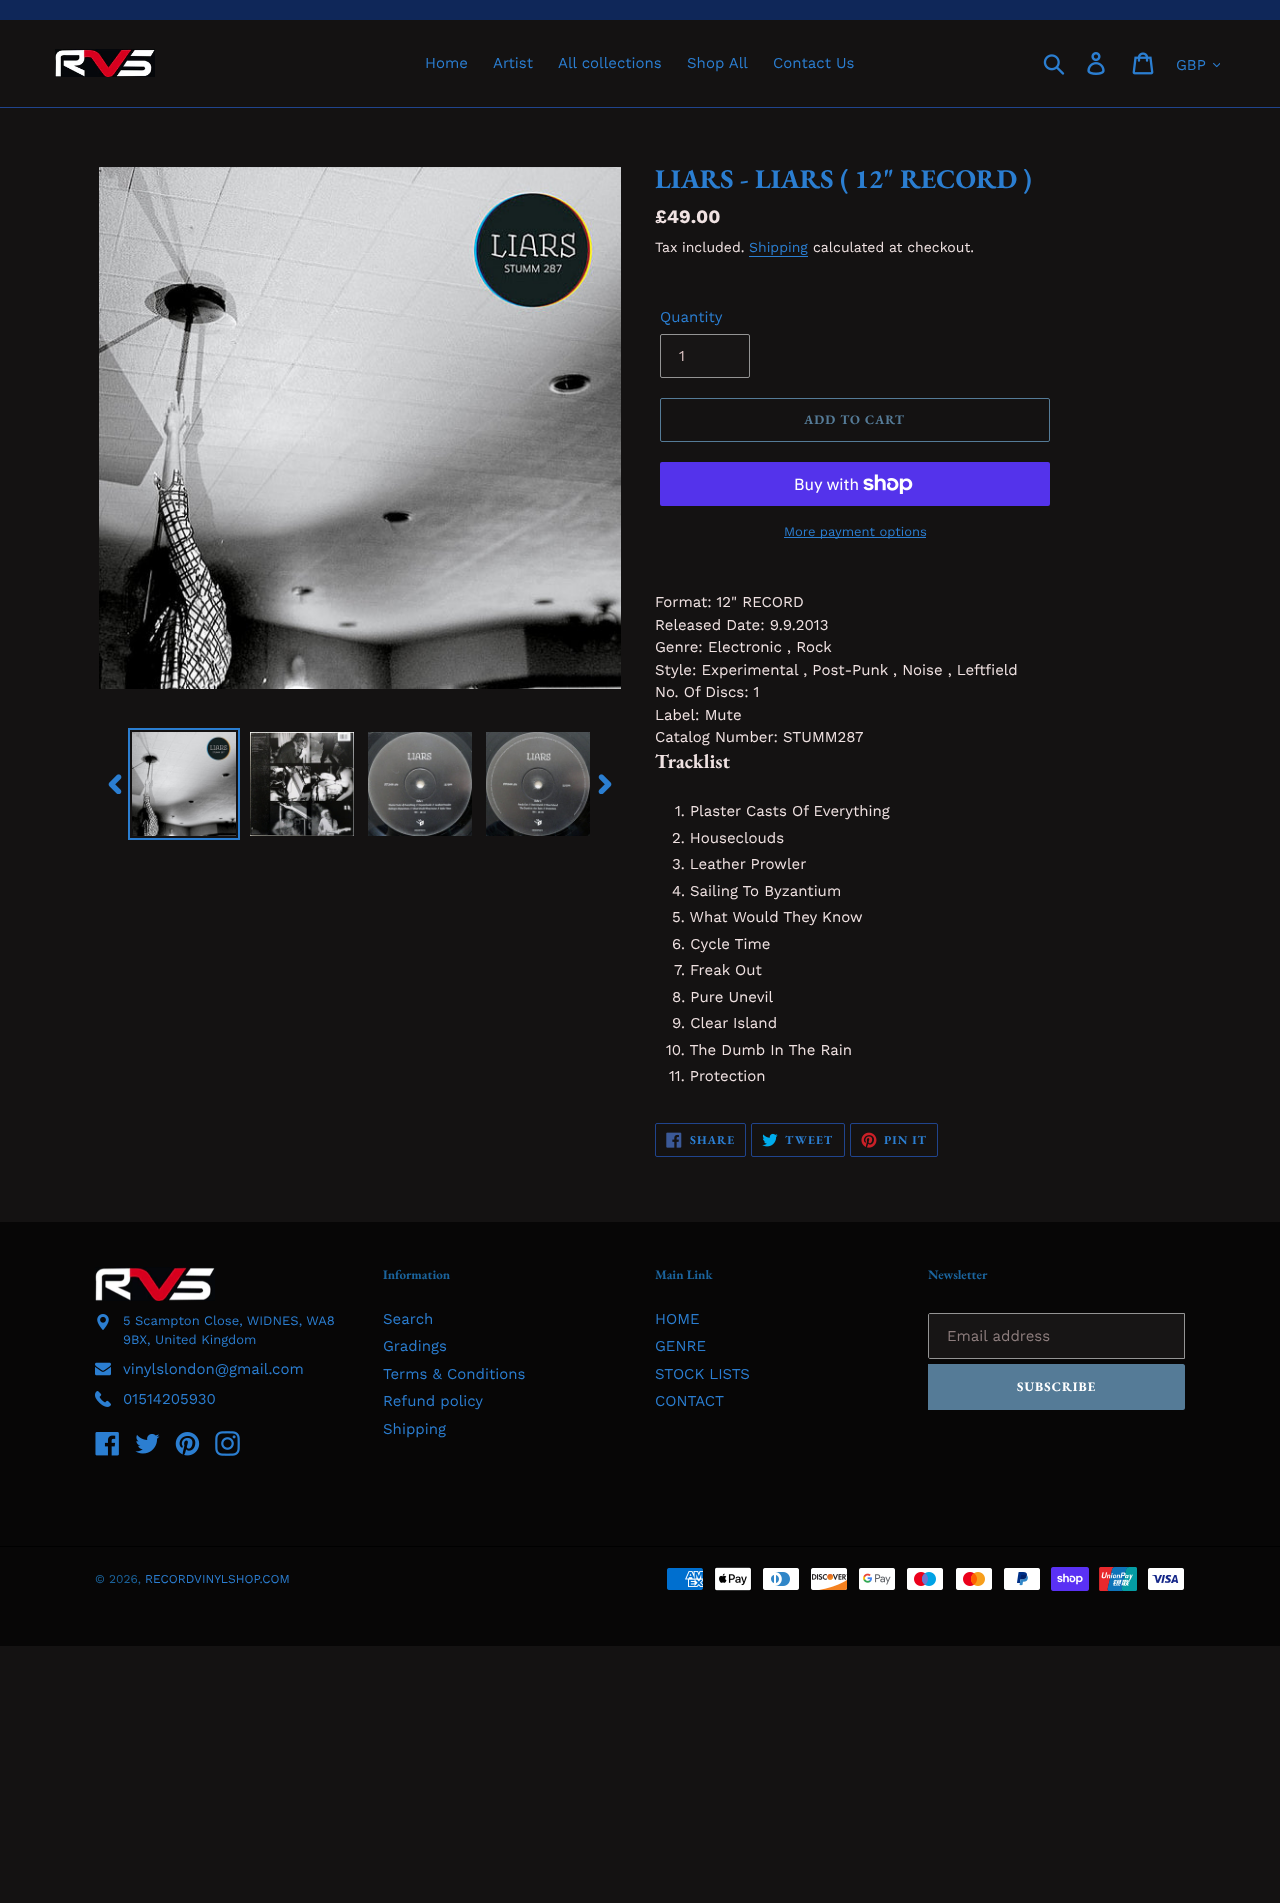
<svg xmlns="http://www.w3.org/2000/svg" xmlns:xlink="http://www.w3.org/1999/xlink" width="1280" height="1903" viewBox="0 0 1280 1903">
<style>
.cls-1{font:15px Work Sans;fill:#2b7ed1}
.cls-2{font:bold 27px EB Garamond;fill:#2b7ed1}
.cls-3{font:bold 19px Work Sans;fill:#f0e2e2}
.cls-4{font:14px Work Sans;fill:#f0e2e2}
.cls-5{font:14px Work Sans;fill:#2b7ed1}
.cls-6{font:15px Work Sans;fill:#dbc2c2}
.cls-7{font:bold 13px EB Garamond;letter-spacing:1px;fill:#557b97}
.cls-8{font:16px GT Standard;fill:#ffffff}
.cls-9{font:13px Work Sans;fill:#2b7ed1}
.cls-10{font:15px Work Sans;fill:#f0e2e2}
.cls-11{font:bold 20px EB Garamond;fill:#f0e2e2}
.cls-12{font:bold 12px EB Garamond;letter-spacing:1px;fill:#2b7ed1}
.cls-13{font:bold 13px EB Garamond;fill:#1b649d}
.cls-14{font:15px Work Sans;fill:#8d7d7d}
.cls-15{font:bold 13px EB Garamond;letter-spacing:1px;fill:#ffffff}
.cls-16{font:12px Work Sans;fill:#1b649d}
.cls-17{font:12px Work Sans;fill:#2b7ed1}
</style>
<rect width="100%" height="100%" fill="#141212"/>
<rect fill="#0f2759" x="0" y="0" width="1280" height="20"/>
<rect fill="#20448d" x="0" y="107" width="1280" height="1"/>
<image xlink:href="image0.png" x="55" y="49" width="100" height="28"/>
<image xlink:href="image1.png" x="1043" y="54" width="22" height="21"/>
<image xlink:href="image2.png" x="1087" y="52" width="18" height="23"/>
<image xlink:href="image3.png" x="1132" y="52" width="22" height="23"/>
<image xlink:href="image4.png" x="1213" y="62" width="7" height="6"/>
<image xlink:href="image5.png" x="99" y="167" width="522" height="522"/>
<image xlink:href="image6.png" x="108" y="774" width="14" height="20"/>
<rect fill="none" stroke="#2b7ed1" stroke-width="2" x="129" y="729" width="110" height="110"/>
<image xlink:href="image7.png" x="132" y="732" width="104" height="104"/>
<image xlink:href="image8.png" x="250" y="732" width="104" height="104"/>
<image xlink:href="image9.png" x="368" y="732" width="104" height="104"/>
<image xlink:href="image10.png" x="486" y="732" width="104" height="104"/>
<image xlink:href="image11.png" x="598" y="774" width="14" height="20"/>
<rect fill="#2b7ed1" x="749" y="256" width="59" height="1"/>
<rect fill="#171515" stroke="#949494" x="660.5" y="334.5" width="89" height="43" rx="1.5"/>
<rect fill="none" stroke="#557b97" x="660.5" y="398.5" width="389" height="43" rx="1.5"/>
<rect fill="#5433eb" x="660" y="462" width="390" height="44" rx="2"/>
<image xlink:href="image12.png" x="863" y="474" width="50" height="20"/>
<rect fill="#2b7ed1" x="784" y="537" width="142" height="1"/>
<rect fill="none" stroke="#20448d" x="655.5" y="1123.5" width="90" height="33" rx="1.5"/>
<image xlink:href="image13.png" x="666" y="1132" width="16" height="16"/>
<rect fill="none" stroke="#20448d" x="751.5" y="1123.5" width="93" height="33" rx="1.5"/>
<image xlink:href="image14.png" x="762" y="1133" width="16" height="14"/>
<rect fill="none" stroke="#20448d" x="850.5" y="1123.5" width="87" height="33" rx="1.5"/>
<image xlink:href="image15.png" x="861" y="1132" width="16" height="16"/>
<rect fill="#070606" x="0" y="1222" width="1280" height="424"/>
<image xlink:href="image16.png" x="95" y="1267" width="120" height="34"/>
<image xlink:href="image17.png" x="97" y="1314" width="12" height="16"/>
<image xlink:href="image18.png" x="95" y="1362" width="16" height="14"/>
<image xlink:href="image19.png" x="95" y="1391" width="16" height="16"/>
<image xlink:href="image20.png" x="95" y="1432" width="24" height="24"/>
<image xlink:href="image21.png" x="135" y="1434" width="25" height="20"/>
<image xlink:href="image22.png" x="175" y="1432" width="25" height="24"/>
<image xlink:href="image23.png" x="215" y="1431" width="25" height="25"/>
<path fill="#171515" stroke="#949494" d="M930 1313.5H1184.5V1358.5H930C929 1358.5 928.5 1358 928.5 1357V1315C928.5 1314 929 1313.5 930 1313.5Z"/>
<path fill="#557b97" d="M928 1364H1183C1184 1364 1185 1365 1185 1366V1408C1185 1409 1184 1410 1183 1410H928Z"/>
<rect fill="#000000" x="0" y="1546" width="1280" height="1"/>
<image xlink:href="image24.png" x="667" y="1568" width="36" height="22"/>
<image xlink:href="image25.png" x="714" y="1567" width="38" height="24"/>
<image xlink:href="image26.png" x="763" y="1568" width="36" height="22"/>
<image xlink:href="image27.png" x="811" y="1568" width="37" height="22"/>
<image xlink:href="image28.png" x="859" y="1568" width="36" height="22"/>
<image xlink:href="image29.png" x="907" y="1568" width="36" height="22"/>
<image xlink:href="image30.png" x="956" y="1568" width="36" height="22"/>
<image xlink:href="image31.png" x="1004" y="1568" width="36" height="22"/>
<image xlink:href="image32.png" x="1051" y="1567" width="38" height="24"/>
<image xlink:href="image33.png" x="1099" y="1567" width="38" height="24"/>
<image xlink:href="image34.png" x="1148" y="1568" width="36" height="22"/>
<text class="cls-1" x="425" y="68">Home</text>
<text class="cls-1" x="493" y="68">Artist</text>
<text class="cls-1" x="558" y="68">All collections</text>
<text class="cls-1" x="687" y="68">Shop All</text>
<text class="cls-1" x="773" y="68">Contact Us</text>
<text class="cls-1" x="1176" y="70">GBP</text>
<text class="cls-2" x="655" y="188">LIARS - LIARS ( 12" RECORD )</text>
<text class="cls-3" x="655" y="223">£49.00</text>
<text class="cls-4" x="655" y="252">Tax included.</text>
<text class="cls-5" x="749" y="252">Shipping</text>
<text class="cls-4" x="813" y="252">calculated at checkout.</text>
<text class="cls-1" x="660" y="322">Quantity</text>
<text class="cls-6" x="679" y="361">1</text>
<text class="cls-7" x="804" y="424">ADD TO CART</text>
<text class="cls-8" x="794" y="490">Buy with</text>
<text class="cls-9" x="784" y="536">More payment options</text>
<text class="cls-10"><tspan x="655" y="607">Format: 12" RECORD</tspan><tspan x="655" y="630">Released Date: 9.9.2013</tspan><tspan x="655" y="652">Genre: Electronic , Rock</tspan><tspan x="655" y="675">Style: Experimental , Post-Punk , Noise , Leftfield</tspan><tspan x="655" y="697">No. Of Discs: 1</tspan><tspan x="655" y="720">Label: Mute</tspan><tspan x="655" y="742">Catalog Number: STUMM287</tspan></text>
<text class="cls-11" x="655" y="768">Tracklist</text>
<text class="cls-10" x="675" y="816">1. Plaster Casts Of Everything</text>
<text class="cls-10"><tspan x="672" y="843">2. Houseclouds</tspan><tspan x="672" y="869">3. Leather Prowler</tspan><tspan x="672" y="896">4. Sailing To Byzantium</tspan><tspan x="672" y="922">5. What Would They Know</tspan><tspan x="672" y="949">6. Cycle Time</tspan></text>
<text class="cls-10" x="674" y="975">7. Freak Out</text>
<text class="cls-10"><tspan x="672" y="1002">8. Pure Unevil</tspan><tspan x="672" y="1028">9. Clear Island</tspan></text>
<text class="cls-10" x="666" y="1055">10. The Dumb In The Rain</text>
<text class="cls-10" x="669" y="1081">11. Protection</text>
<text class="cls-12" x="690" y="1144">SHARE</text>
<text class="cls-12" x="785" y="1144">TWEET</text>
<text class="cls-12" x="884" y="1144">PIN IT</text>
<text class="cls-9"><tspan x="123" y="1325">5 Scampton Close, WIDNES, WA8</tspan><tspan x="123" y="1344">9BX, United Kingdom</tspan></text>
<text class="cls-1" x="123" y="1374">vinylslondon@gmail.com</text>
<text class="cls-1" x="123" y="1404">01514205930</text>
<text class="cls-13" x="383" y="1279">Information</text>
<text class="cls-1"><tspan x="383" y="1324">Search</tspan><tspan x="383" y="1351">Gradings</tspan><tspan x="383" y="1379">Terms &amp; Conditions</tspan><tspan x="383" y="1406">Refund policy</tspan><tspan x="383" y="1434">Shipping</tspan></text>
<text class="cls-13" x="655" y="1279">Main Link</text>
<text class="cls-1"><tspan x="655" y="1324">HOME</tspan><tspan x="655" y="1351">GENRE</tspan><tspan x="655" y="1379">STOCK LISTS</tspan><tspan x="655" y="1406">CONTACT</tspan></text>
<text class="cls-13" x="928" y="1279">Newsletter</text>
<text class="cls-14" x="947" y="1341">Email address</text>
<text class="cls-15" x="1017" y="1391">SUBSCRIBE</text>
<text class="cls-16" x="95" y="1583">© 2026,</text>
<text class="cls-17" x="145" y="1583">RECORDVINYLSHOP.COM</text>
</svg>
